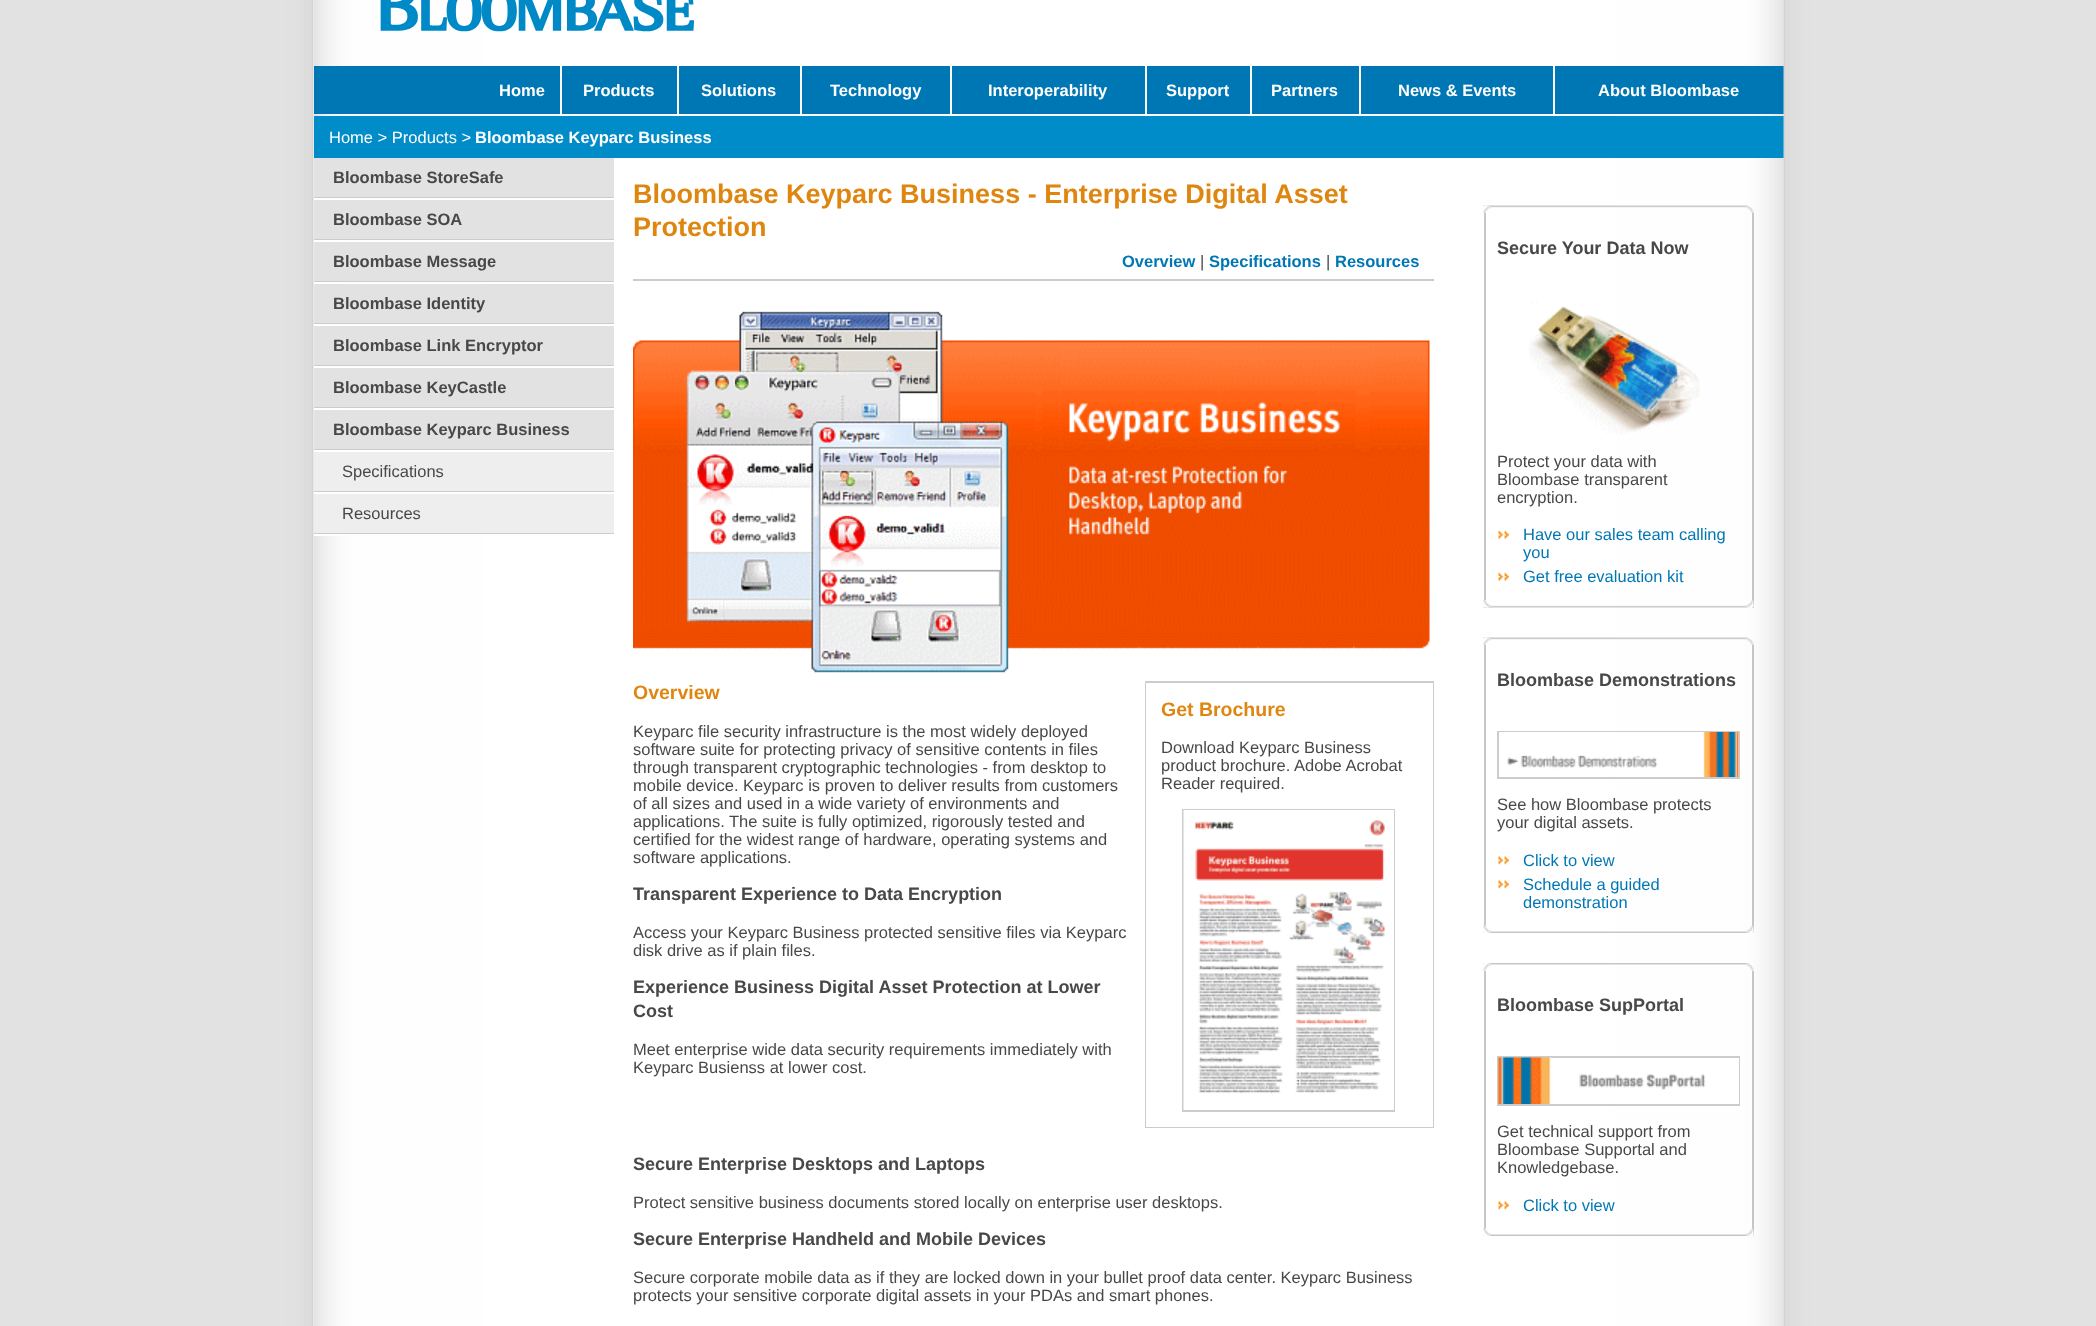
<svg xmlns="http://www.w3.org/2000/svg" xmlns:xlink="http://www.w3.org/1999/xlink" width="2096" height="1326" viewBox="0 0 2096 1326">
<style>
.cls-1{font:bold 16.5px Liberation Sans;fill:#ffffff}
.cls-2{font:16.5px Liberation Sans;fill:#ffffff}
.cls-3{font:bold 16.5px Liberation Sans;fill:#484848}
.cls-4{font:16.5px Liberation Sans;fill:#484848}
.cls-5{font:bold 27px Liberation Sans;fill:#df8610}
.cls-6{font:bold 16.5px Liberation Sans;fill:#0077b5}
.cls-7{font:bold 19.5px Liberation Sans;fill:#df8610}
.cls-8{font:bold 18px Liberation Sans;fill:#484848}
.cls-9{font:16.5px Liberation Sans;fill:#0077b5}
</style>
<rect width="100%" height="100%" fill="#ffffff"/>
<image xlink:href="image0.png" x="0" y="0" width="314" height="1326"/>
<image xlink:href="image1.png" x="314" y="0" width="1470" height="1326"/>
<image xlink:href="image2.png" x="380" y="0" width="315" height="32"/>
<rect fill="#0077b5" x="314" y="66" width="1470" height="48"/>
<rect fill="#ffffff" x="560" y="66" width="2" height="48"/>
<rect fill="#ffffff" x="677" y="66" width="2" height="48"/>
<rect fill="#ffffff" x="800" y="66" width="2" height="48"/>
<rect fill="#ffffff" x="950" y="66" width="2" height="48"/>
<rect fill="#ffffff" x="1145" y="66" width="2" height="48"/>
<rect fill="#ffffff" x="1250" y="66" width="2" height="48"/>
<rect fill="#ffffff" x="1359" y="66" width="2" height="48"/>
<rect fill="#ffffff" x="1553" y="66" width="2" height="48"/>
<rect fill="#008cc9" x="314" y="116" width="1470" height="42"/>
<rect fill="#eeeeee" x="314" y="452" width="300" height="81"/>
<rect fill="#e2e2e2" x="315" y="158" width="299" height="39"/>
<rect fill="#cccccc" x="314" y="197" width="300" height="1"/>
<rect fill="#ffffff" x="314" y="198" width="33" height="2"/>
<rect fill="#e2e2e2" x="315" y="200" width="299" height="39"/>
<rect fill="#cccccc" x="314" y="239" width="300" height="1"/>
<rect fill="#ffffff" x="314" y="240" width="33" height="2"/>
<rect fill="#e2e2e2" x="315" y="242" width="299" height="39"/>
<rect fill="#cccccc" x="314" y="281" width="300" height="1"/>
<rect fill="#ffffff" x="314" y="282" width="33" height="2"/>
<rect fill="#e2e2e2" x="315" y="284" width="299" height="39"/>
<rect fill="#cccccc" x="314" y="323" width="300" height="1"/>
<rect fill="#ffffff" x="314" y="324" width="33" height="2"/>
<rect fill="#e2e2e2" x="315" y="326" width="299" height="39"/>
<rect fill="#cccccc" x="314" y="365" width="300" height="1"/>
<rect fill="#ffffff" x="314" y="366" width="33" height="2"/>
<rect fill="#e2e2e2" x="315" y="368" width="299" height="39"/>
<rect fill="#cccccc" x="314" y="407" width="300" height="1"/>
<rect fill="#ffffff" x="314" y="408" width="33" height="2"/>
<rect fill="#e2e2e2" x="315" y="410" width="299" height="39"/>
<rect fill="#cccccc" x="314" y="449" width="300" height="1"/>
<rect fill="#ffffff" x="314" y="450" width="33" height="2"/>
<rect fill="#cccccc" x="314" y="491" width="300" height="1"/>
<rect fill="#ffffff" x="314" y="492" width="300" height="2"/>
<rect fill="#cccccc" x="314" y="533" width="300" height="1"/>
<rect fill="#ffffff" x="314" y="534" width="33" height="2"/>
<rect fill="#cccccc" x="633" y="279" width="801" height="2"/>
<image xlink:href="image3.png" x="633" y="311" width="797" height="362"/>
<rect fill="#cccccc" x="1145" y="681" width="289" height="447"/>
<rect fill="#ffffff" x="1146" y="683" width="287" height="444"/>
<rect fill="#cccccc" x="1182" y="809" width="213" height="303"/>
<rect fill="#ffffff" x="1385" y="810" width="9" height="300"/>
<image xlink:href="image4.png" x="1183" y="810" width="202" height="300"/>
<image xlink:href="image5.png" x="1483" y="205" width="271" height="8"/>
<image xlink:href="image6.png" x="1483" y="205" width="8" height="8"/>
<rect fill="#ffffff" x="1750" y="213" width="2" height="395"/>
<rect fill="#c6c6c6" x="1752" y="213" width="2" height="395"/>
<rect fill="#c6c6c6" x="1484" y="213" width="2" height="395"/>
<image xlink:href="image7.png" x="1528" y="300" width="172" height="135"/>
<image xlink:href="image8.png" x="1498" y="530" width="11" height="9"/>
<image xlink:href="image8.png" x="1498" y="572" width="11" height="9"/>
<image xlink:href="image9.png" x="1483" y="600" width="271" height="8"/>
<image xlink:href="image10.png" x="1483" y="600" width="8" height="8"/>
<image xlink:href="image5.png" x="1483" y="637" width="271" height="8"/>
<image xlink:href="image6.png" x="1483" y="637" width="8" height="8"/>
<rect fill="#ffffff" x="1750" y="645" width="2" height="287"/>
<rect fill="#c6c6c6" x="1752" y="645" width="2" height="288"/>
<rect fill="#c6c6c6" x="1484" y="645" width="2" height="288"/>
<rect fill="#cccccc" x="1497" y="731" width="243" height="48"/>
<rect fill="#ffffff" x="1499" y="732" width="240" height="45"/>
<image xlink:href="image11.png" x="1507" y="732" width="232" height="45"/>
<image xlink:href="image12.png" x="1498" y="856" width="11" height="9"/>
<image xlink:href="image12.png" x="1498" y="880" width="11" height="9"/>
<image xlink:href="image13.png" x="1483" y="925" width="271" height="8"/>
<image xlink:href="image14.png" x="1483" y="925" width="8" height="8"/>
<image xlink:href="image15.png" x="1483" y="963" width="271" height="8"/>
<image xlink:href="image16.png" x="1483" y="963" width="8" height="8"/>
<rect fill="#ffffff" x="1750" y="971" width="2" height="264"/>
<rect fill="#c6c6c6" x="1752" y="971" width="2" height="265"/>
<rect fill="#c6c6c6" x="1484" y="971" width="2" height="265"/>
<rect fill="#cccccc" x="1497" y="1056" width="243" height="50"/>
<rect fill="#ffffff" x="1550" y="1058" width="189" height="46"/>
<image xlink:href="image17.png" x="1498" y="1057" width="208" height="47"/>
<image xlink:href="image12.png" x="1498" y="1201" width="11" height="9"/>
<image xlink:href="image13.png" x="1483" y="1228" width="271" height="8"/>
<image xlink:href="image14.png" x="1483" y="1228" width="8" height="8"/>
<image xlink:href="image18.png" x="1783" y="0" width="313" height="1326"/>
<text class="cls-1" x="499" y="96">Home</text>
<text class="cls-1" x="583" y="96">Products</text>
<text class="cls-1" x="701" y="96">Solutions</text>
<text class="cls-1" x="830" y="96">Technology</text>
<text class="cls-1" x="988" y="96">Interoperability</text>
<text class="cls-1" x="1166" y="96">Support</text>
<text class="cls-1" x="1271" y="96">Partners</text>
<text class="cls-1" x="1398" y="96">News &amp; Events</text>
<text class="cls-1" x="1598" y="96">About Bloombase</text>
<text class="cls-2" x="329" y="143">Home &gt; Products &gt;</text>
<text class="cls-1" x="475" y="143">Bloombase Keyparc Business</text>
<text class="cls-3" x="333" y="183">Bloombase StoreSafe</text>
<text class="cls-3" x="333" y="225">Bloombase SOA</text>
<text class="cls-3" x="333" y="267">Bloombase Message</text>
<text class="cls-3" x="333" y="309">Bloombase Identity</text>
<text class="cls-3" x="333" y="351">Bloombase Link Encryptor</text>
<text class="cls-3" x="333" y="393">Bloombase KeyCastle</text>
<text class="cls-3" x="333" y="435">Bloombase Keyparc Business</text>
<text class="cls-4" x="342" y="477">Specifications</text>
<text class="cls-4" x="342" y="519">Resources</text>
<text class="cls-5"><tspan x="633" y="203">Bloombase Keyparc Business - Enterprise Digital Asset</tspan><tspan x="633" y="236">Protection</tspan></text>
<text class="cls-6" x="1122" y="267">Overview</text>
<text class="cls-4" x="1200" y="267">|</text>
<text class="cls-6" x="1209" y="267">Specifications</text>
<text class="cls-4" x="1326" y="267">|</text>
<text class="cls-6" x="1335" y="267">Resources</text>
<text class="cls-7" x="633" y="699">Overview</text>
<text class="cls-4"><tspan x="633" y="737">Keyparc file security infrastructure is the most widely deployed</tspan><tspan x="633" y="755">software suite for protecting privacy of sensitive contents in files</tspan><tspan x="633" y="773">through transparent cryptographic technologies - from desktop to</tspan><tspan x="633" y="791">mobile device. Keyparc is proven to deliver results from customers</tspan><tspan x="633" y="809">of all sizes and used in a wide variety of environments and</tspan><tspan x="633" y="827">applications. The suite is fully optimized, rigorously tested and</tspan><tspan x="633" y="845">certified for the widest range of hardware, operating systems and</tspan><tspan x="633" y="863">software applications.</tspan></text>
<text class="cls-8" x="633" y="900">Transparent Experience to Data Encryption</text>
<text class="cls-4"><tspan x="633" y="938">Access your Keyparc Business protected sensitive files via Keyparc</tspan><tspan x="633" y="956">disk drive as if plain files.</tspan></text>
<text class="cls-8"><tspan x="633" y="993">Experience Business Digital Asset Protection at Lower</tspan><tspan x="633" y="1017">Cost</tspan></text>
<text class="cls-4"><tspan x="633" y="1055">Meet enterprise wide data security requirements immediately with</tspan><tspan x="633" y="1073">Keyparc Busienss at lower cost.</tspan></text>
<text class="cls-7" x="1161" y="716">Get Brochure</text>
<text class="cls-4"><tspan x="1161" y="753">Download Keyparc Business</tspan><tspan x="1161" y="771">product brochure. Adobe Acrobat</tspan><tspan x="1161" y="789">Reader required.</tspan></text>
<text class="cls-8" x="633" y="1170">Secure Enterprise Desktops and Laptops</text>
<text class="cls-4" x="633" y="1208">Protect sensitive business documents stored locally on enterprise user desktops.</text>
<text class="cls-8" x="633" y="1245">Secure Enterprise Handheld and Mobile Devices</text>
<text class="cls-4"><tspan x="633" y="1283">Secure corporate mobile data as if they are locked down in your bullet proof data center. Keyparc Business</tspan><tspan x="633" y="1301">protects your sensitive corporate digital assets in your PDAs and smart phones.</tspan></text>
<text class="cls-8" x="1497" y="254">Secure Your Data Now</text>
<text class="cls-4"><tspan x="1497" y="467">Protect your data with</tspan><tspan x="1497" y="485">Bloombase transparent</tspan><tspan x="1497" y="503">encryption.</tspan></text>
<text class="cls-9"><tspan x="1523" y="540">Have our sales team calling</tspan><tspan x="1523" y="558">you</tspan><tspan x="1523" y="582">Get free evaluation kit</tspan></text>
<text class="cls-8" x="1497" y="686">Bloombase Demonstrations</text>
<text class="cls-4"><tspan x="1497" y="810">See how Bloombase protects</tspan><tspan x="1497" y="828">your digital assets.</tspan></text>
<text class="cls-9"><tspan x="1523" y="866">Click to view</tspan><tspan x="1523" y="890">Schedule a guided</tspan><tspan x="1523" y="908">demonstration</tspan></text>
<text class="cls-8" x="1497" y="1011">Bloombase SupPortal</text>
<text class="cls-4"><tspan x="1497" y="1137">Get technical support from</tspan><tspan x="1497" y="1155">Bloombase Supportal and</tspan><tspan x="1497" y="1173">Knowledgebase.</tspan></text>
<text class="cls-9" x="1523" y="1211">Click to view</text>
</svg>
